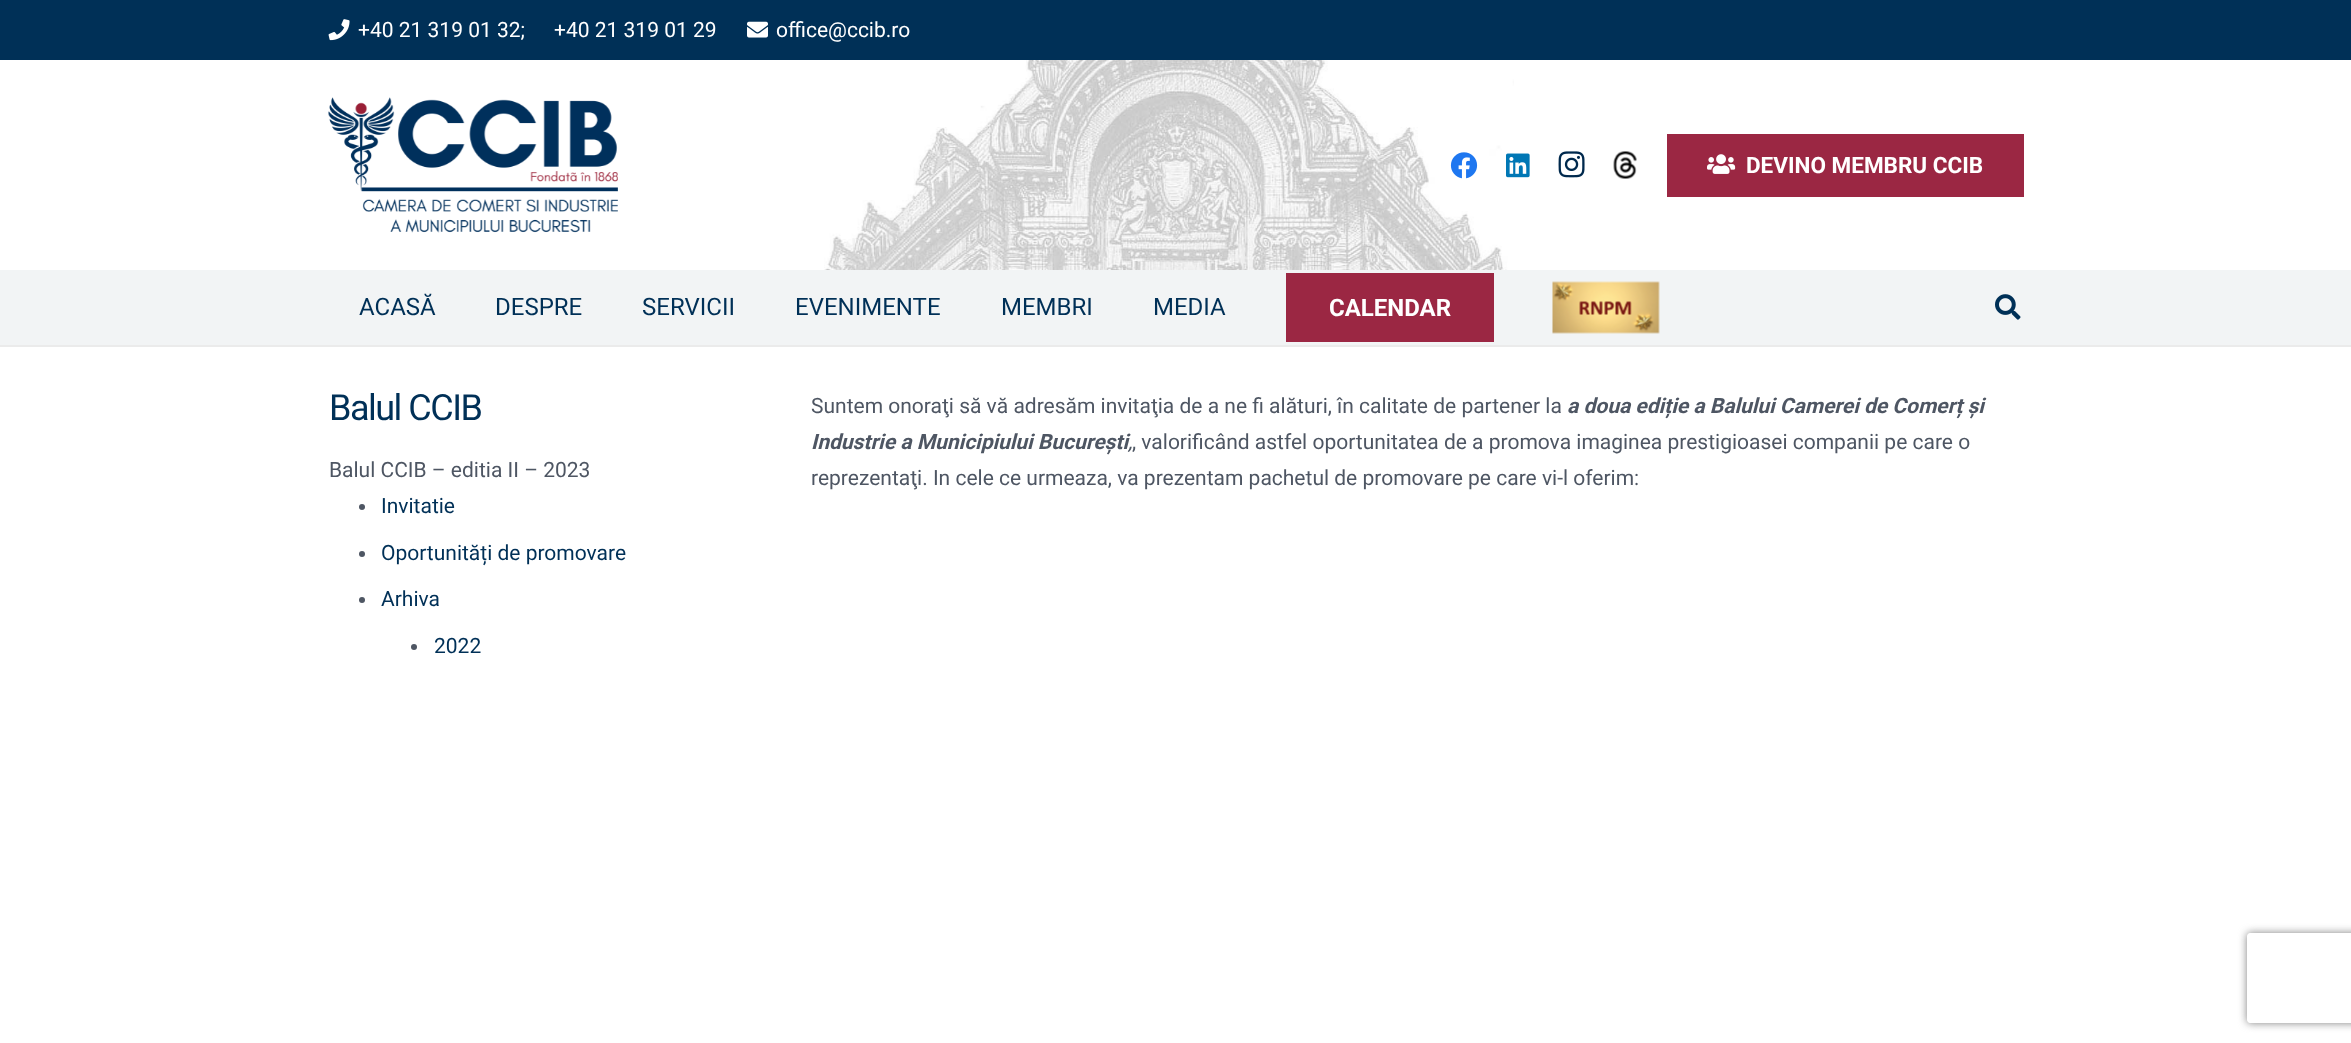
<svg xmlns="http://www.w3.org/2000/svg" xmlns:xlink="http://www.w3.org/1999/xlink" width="2351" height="1043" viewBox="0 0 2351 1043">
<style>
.cls-1{font:21px Roboto;fill:#ffffff}
.cls-2{font:bold 22.5px Roboto;fill:#ffffff}
.cls-3{font:24px Roboto;fill:#003057}
.cls-4{font:bold 24px Roboto;fill:#ffffff}
.cls-5{font:36px Roboto;letter-spacing:-1.5px;fill:#003057}
.cls-6{font:21px Roboto;fill:#4e5663}
.cls-7{font:21px Roboto;fill:#003057}
.cls-8{font:italic bold 21px Roboto;fill:#4e5663}
.cls-9{font:italic 21px Roboto;fill:#4e5663}
</style>
<defs>
<clipPath id="clip1"><path d="M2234 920H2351V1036H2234ZM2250 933H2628C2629.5 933 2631 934.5 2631 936V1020C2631 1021.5 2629.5 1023 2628 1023H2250C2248.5 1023 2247 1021.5 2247 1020V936C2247 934.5 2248.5 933 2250 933Z" clip-rule="evenodd"/></clipPath>
</defs>
<rect width="100%" height="100%" fill="#ffffff"/>
<rect fill="#003057" x="0" y="0" width="2351" height="60"/>
<image xlink:href="image0.png" x="328" y="19" width="22" height="22"/>
<image xlink:href="image1.png" x="747" y="21" width="21" height="17"/>
<image xlink:href="image2.png" x="824" y="60" width="690" height="210"/>
<image xlink:href="image3.png" x="328" y="97" width="290" height="136"/>
<image xlink:href="image4.png" x="1450" y="152" width="28" height="27"/>
<image xlink:href="image5.png" x="1506" y="153" width="24" height="25"/>
<image xlink:href="image6.png" x="1558" y="151" width="27" height="27"/>
<image xlink:href="image7.png" x="1613" y="151" width="24" height="28"/>
<rect fill="#9b2743" x="1667" y="134" width="357" height="63"/>
<image xlink:href="image8.png" x="1707" y="154" width="29" height="20"/>
<rect fill="#ebebeb" x="0" y="345" width="2351" height="2"/>
<rect fill="#f2f4f5" x="0" y="270" width="2351" height="75"/>
<rect fill="#9b2743" x="1286" y="273" width="208" height="69"/>
<image xlink:href="image9.png" x="1552" y="281" width="108" height="53"/>
<image xlink:href="image10.png" x="1995" y="294" width="26" height="26"/>
<circle fill="#4e5663" cx="362" cy="507" r="3"/>
<circle fill="#4e5663" cx="362" cy="554" r="3"/>
<circle fill="#4e5663" cx="362" cy="600" r="3"/>
<circle fill="#4e5663" cx="414" cy="647" r="3"/>
<g clip-path="url(#clip1)">
<rect fill="#808080" filter="blur(4px)" x="2247" y="933" width="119" height="90" rx="3"/>
</g>
<text class="cls-1" x="358" y="37">+40 21 319 01 32;</text>
<text class="cls-1" x="554" y="37">+40 21 319 01 29</text>
<text class="cls-1" x="776" y="37">office@ccib.ro</text>
<text class="cls-2" x="1746" y="173">DEVINO MEMBRU CCIB</text>
<text class="cls-3" x="359" y="315">ACASĂ</text>
<text class="cls-3" x="495" y="315">DESPRE</text>
<text class="cls-3" x="642" y="315">SERVICII</text>
<text class="cls-3" x="795" y="315">EVENIMENTE</text>
<text class="cls-3" x="1001" y="315">MEMBRI</text>
<text class="cls-3" x="1153" y="315">MEDIA</text>
<text class="cls-4" x="1329" y="316">CALENDAR</text>
<text class="cls-5" x="329" y="420">Balul CCIB</text>
<text class="cls-6" x="329" y="477">Balul CCIB – editia II – 2023</text>
<text class="cls-7" x="381" y="513">Invitatie</text>
<text class="cls-7" x="381" y="560">Oportunități de promovare</text>
<text class="cls-7" x="381" y="606">Arhiva</text>
<text class="cls-7" x="434" y="653">2022</text>
<text class="cls-6" x="811" y="413">Suntem onoraţi să vă adresăm invitaţia de a ne fi alături, în calitate de partener la</text>
<text class="cls-8" x="1567" y="413">a doua ediție a Balului Camerei de Comerț și</text>
<text class="cls-8" x="811" y="449">Industrie a Municipiului București</text>
<text class="cls-6" x="1132" y="449">, valorificând astfel oportunitatea de a promova imaginea prestigioasei companii pe care o</text>
<text class="cls-9" x="1128" y="449">,</text>
<text class="cls-6" x="811" y="485">reprezentaţi. In cele ce urmeaza, va prezentam pachetul de promovare pe care vi-l oferim:</text>
</svg>
